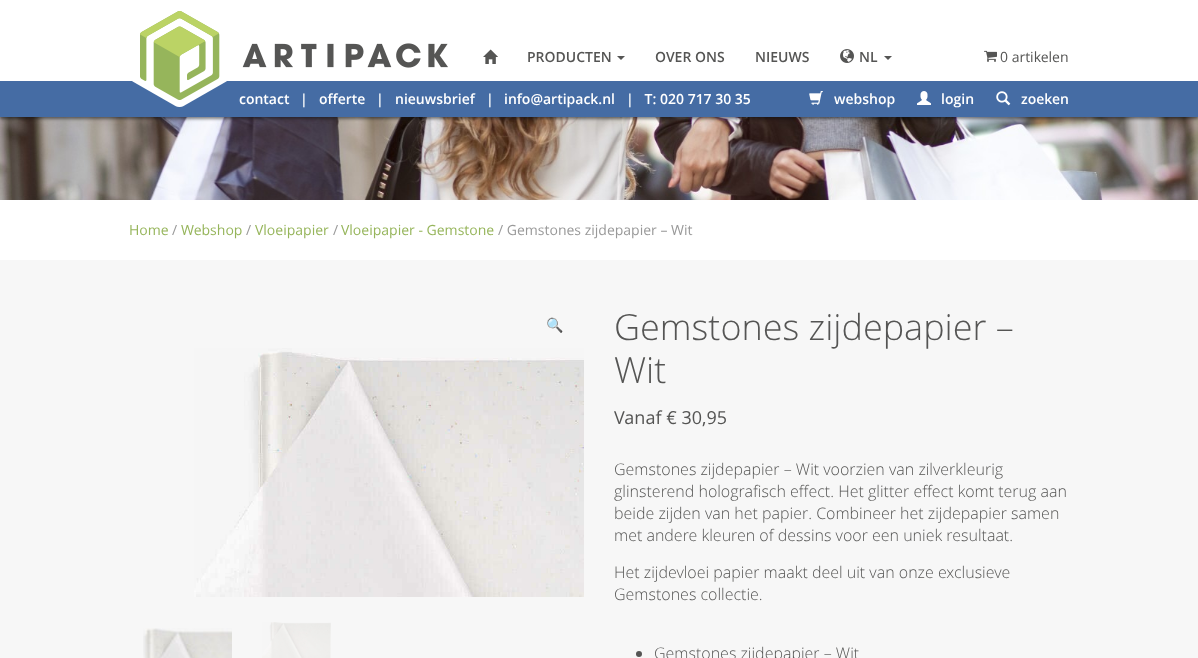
<svg xmlns="http://www.w3.org/2000/svg" xmlns:xlink="http://www.w3.org/1999/xlink" width="1198" height="658" viewBox="0 0 1198 658">
<style>
.cls-1{font:600 14px Open Sans;fill:#555554}
.cls-2{font:14px Open Sans;fill:#555554}
.cls-3{font:600 14px Open Sans;fill:#ffffff}
.cls-4{font:14px Open Sans;fill:#96b55b}
.cls-5{font:14px Open Sans;fill:#999999}
.cls-6{font:14px Noto Color Emoji;fill:#96b55b}
.cls-7{font:300 36px Open Sans;fill:#555554}
.cls-8{font:18px Open Sans;fill:#555554}
.cls-9{font:300 16px Open Sans;fill:#555554}
</style>
<rect width="100%" height="100%" fill="#ffffff"/>
<image xlink:href="image7.png" x="0" y="117" width="1198" height="83"/>
<rect fill="#0c0c0c" fill-opacity="0.49" filter="blur(1.5px)" x="0" y="2" width="1198" height="117"/>
<rect fill="#ffffff" x="0" y="0" width="1198" height="81"/>
<rect fill="#456ca4" x="0" y="81" width="1198" height="36"/>
<image xlink:href="image0.png" x="132" y="11" width="316" height="96"/>
<image xlink:href="image1.png" x="483" y="49" width="15" height="15"/>
<path fill="#555554" d="M617 56H625L621 60Z"/>
<image xlink:href="image2.png" x="840" y="49" width="14" height="14"/>
<path fill="#555554" d="M884 56H892L888 60Z"/>
<image xlink:href="image3.png" x="984" y="50" width="13" height="12"/>
<image xlink:href="image4.png" x="809" y="91" width="14" height="14"/>
<image xlink:href="image5.png" x="917" y="91" width="14" height="14"/>
<image xlink:href="image6.png" x="996" y="91" width="15" height="15"/>
<rect fill="#f7f7f7" x="0" y="260" width="1198" height="398"/>
<image xlink:href="image8.png" x="194" y="348" width="390" height="249"/>
<image xlink:href="image9.png" x="143" y="628" width="89" height="30"/>
<image xlink:href="image10.png" x="262" y="622" width="69" height="36"/>
<circle fill="#555554" cx="639" cy="654" r="3"/>
<text class="cls-1" x="527" y="62">PRODUCTEN</text>
<text class="cls-1" x="655" y="62">OVER ONS</text>
<text class="cls-1" x="755" y="62">NIEUWS</text>
<text class="cls-1" x="859" y="62">NL</text>
<text class="cls-2" x="1000" y="62">0 artikelen</text>
<text class="cls-3" x="239" y="104">contact</text>
<text class="cls-3" x="300" y="104">|</text>
<text class="cls-3" x="319" y="104">offerte</text>
<text class="cls-3" x="376" y="104">|</text>
<text class="cls-3" x="395" y="104">nieuwsbrief</text>
<text class="cls-3" x="486" y="104">|</text>
<text class="cls-3" x="504" y="104">info@artipack.nl</text>
<text class="cls-3" xml:space="preserve" x="626" y="104">|   T: 020 717 30 35</text>
<text class="cls-3" x="834" y="104">webshop</text>
<text class="cls-3" x="941" y="104">login</text>
<text class="cls-3" x="1021" y="104">zoeken</text>
<text class="cls-4" x="129" y="235">Home</text>
<text class="cls-5" x="172" y="235">/</text>
<text class="cls-4" x="181" y="235">Webshop</text>
<text class="cls-5" x="246" y="235">/</text>
<text class="cls-4" x="255" y="235">Vloeipapier</text>
<text class="cls-5" x="333" y="235">/</text>
<text class="cls-4" x="341" y="235">Vloeipapier - Gemstone</text>
<text class="cls-5" x="498" y="235">/ Gemstones zijdepapier – Wit</text>
<text class="cls-6" x="546" y="330">🔍</text>
<text class="cls-7"><tspan x="614" y="340">Gemstones zijdepapier –</tspan><tspan x="614" y="383">Wit</tspan></text>
<text class="cls-8" x="614" y="424">Vanaf € 30,95</text>
<text class="cls-9"><tspan x="614" y="475">Gemstones zijdepapier – Wit voorzien van zilverkleurig</tspan><tspan x="614" y="497">glinsterend holografisch effect. Het glitter effect komt terug aan</tspan><tspan x="614" y="519">beide zijden van het papier. Combineer het zijdepapier samen</tspan><tspan x="614" y="541">met andere kleuren of dessins voor een uniek resultaat.</tspan></text>
<text class="cls-9"><tspan x="614" y="578">Het zijdevloei papier maakt deel uit van onze exclusieve</tspan><tspan x="614" y="600">Gemstones collectie.</tspan></text>
<text class="cls-9" x="654" y="659">Gemstones zijdepapier – Wit</text>
</svg>
